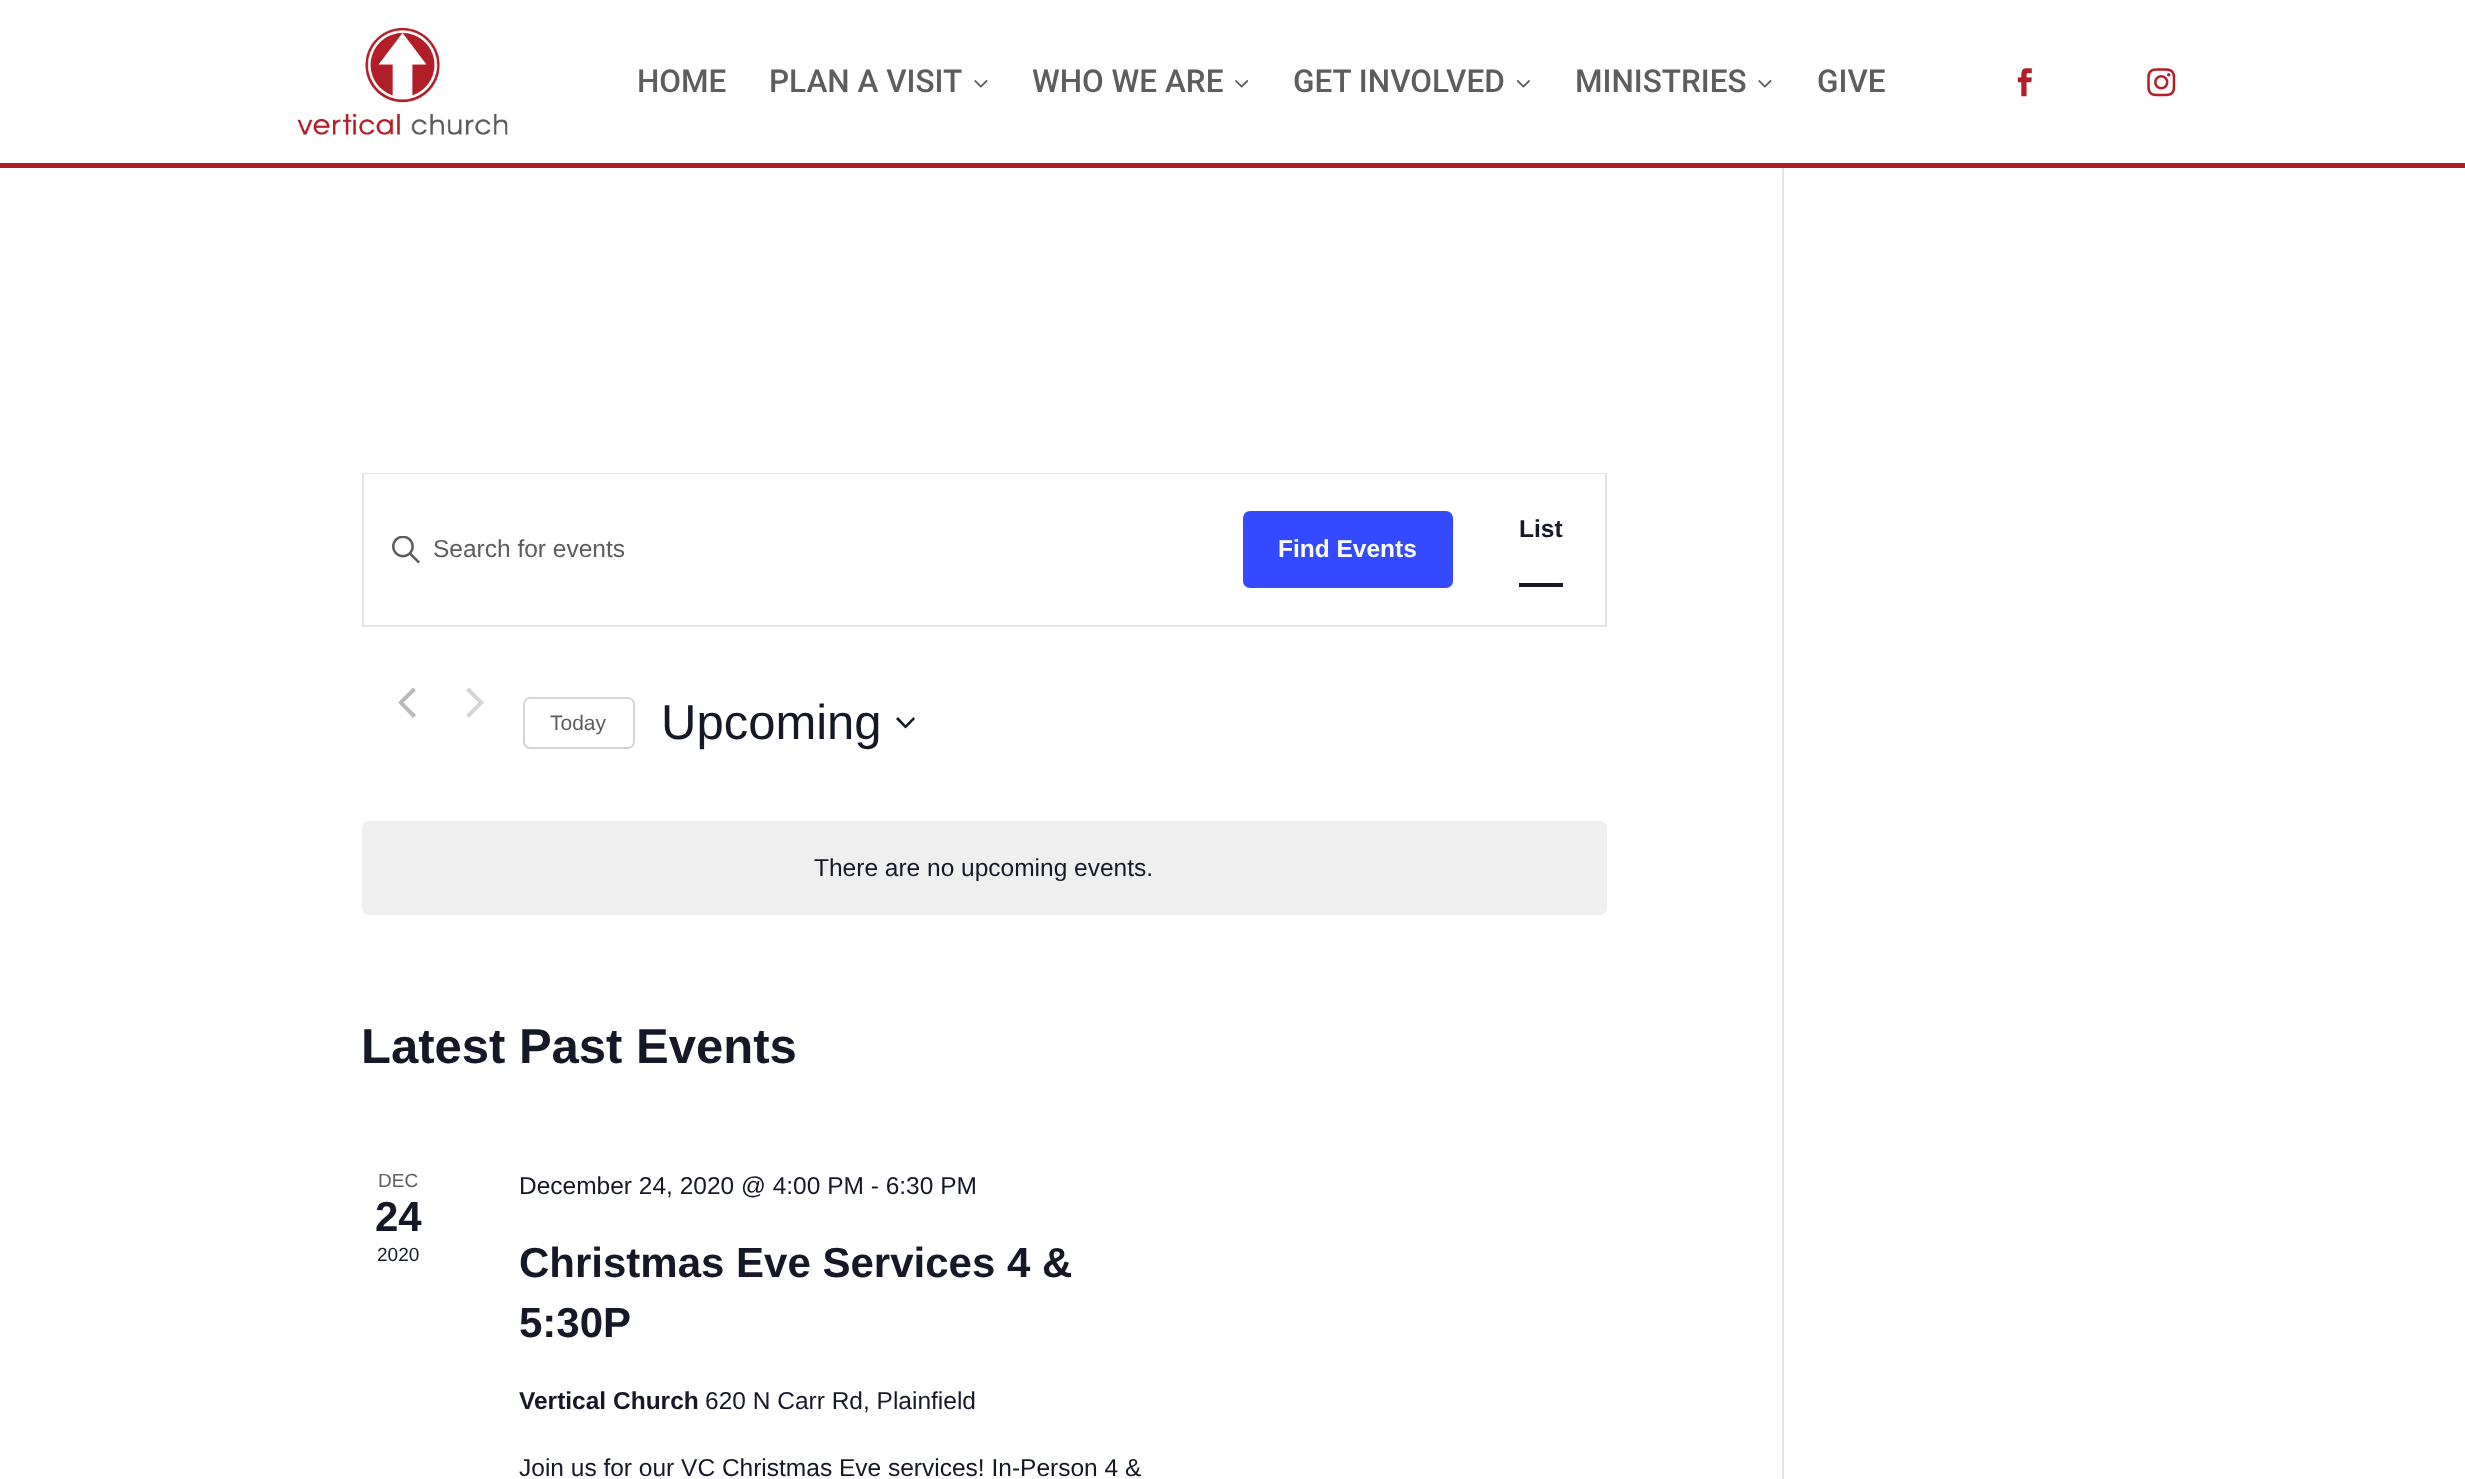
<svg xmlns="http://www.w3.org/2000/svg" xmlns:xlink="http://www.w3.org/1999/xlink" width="2465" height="1479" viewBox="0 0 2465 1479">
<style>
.cls-1{font:500 31.5px Roboto;fill:#5d5d5d}
.cls-2{font:bold 24.5px Liberation Sans;fill:#141827}
.cls-3{font:24.5px Liberation Sans;fill:#5d5d5d}
.cls-4{font:bold 24.5px Liberation Sans;fill:#ffffff}
.cls-5{font:21px Liberation Sans;fill:#5d5d5d}
.cls-6{font:49px Liberation Sans;fill:#141827}
.cls-7{font:24.5px Liberation Sans;fill:#141827}
.cls-8{font:bold 49px Liberation Sans;fill:#141827}
.cls-9{font:19px Liberation Sans;fill:#5d5d5d}
.cls-10{font:bold 42px Liberation Sans;fill:#141827}
.cls-11{font:19px Liberation Sans;fill:#141827}
</style>
<rect width="100%" height="100%" fill="#ffffff"/>
<rect fill="#b21d27" x="0" y="163" width="2465" height="5"/>
<image xlink:href="image0.png" x="297" y="28" width="211" height="107"/>
<image xlink:href="image1.png" x="974" y="80" width="14" height="8"/>
<image xlink:href="image2.png" x="1235" y="80" width="14" height="8"/>
<image xlink:href="image3.png" x="1516" y="80" width="14" height="8"/>
<image xlink:href="image1.png" x="1758" y="80" width="14" height="8"/>
<image xlink:href="image4.png" x="2017" y="68" width="15" height="29"/>
<image xlink:href="image5.png" x="2147" y="68" width="29" height="29"/>
<rect fill="none" stroke="#e4e4e4" stroke-width="2" x="363" y="474" width="1243" height="152"/>
<rect fill="#141827" x="1519" y="583" width="44" height="4"/>
<rect fill="#ffffff" x="364" y="474" width="1241" height="1"/>
<image xlink:href="image6.png" x="392" y="536" width="28" height="28"/>
<rect fill="#334aff" x="1243" y="511" width="210" height="77" rx="7"/>
<path fill="#bababa" d="M416 715L413 718L398 702.5L413 687.5L416 690.5L403.5 702.5Z"/>
<path fill="#d5d5d5" d="M466 690.5L469 687.5L484 702.5L469 718L466 715L478.5 702.5Z"/>
<rect fill="none" stroke="#d5d5d5" stroke-width="2" x="524" y="698" width="110" height="50" rx="6"/>
<path fill="#141827" fill-rule="evenodd" d="M898 717L905.5 725L913.5 717L915 719L905.5 728.5L896 719Z"/>
<rect fill="#efeff0" x="362" y="821" width="1245" height="94" rx="7"/>
<rect fill="#e2e2e2" x="1782" y="168" width="2" height="1311"/>
<text class="cls-1" x="637" y="92">HOME</text>
<text class="cls-1" x="769" y="92">PLAN A VISIT</text>
<text class="cls-1" x="1032" y="92">WHO WE ARE</text>
<text class="cls-1" x="1293" y="92">GET INVOLVED</text>
<text class="cls-1" x="1575" y="92">MINISTRIES</text>
<text class="cls-1" x="1817" y="92">GIVE</text>
<text class="cls-2" x="1519" y="537">List</text>
<text class="cls-3" x="433" y="557">Search for events</text>
<text class="cls-4" x="1278" y="557">Find Events</text>
<text class="cls-5" x="550" y="730">Today</text>
<text class="cls-6" x="661" y="739">Upcoming</text>
<text class="cls-7" x="814" y="876">There are no upcoming events.</text>
<text class="cls-8" x="361" y="1063">Latest Past Events</text>
<text class="cls-9" x="378" y="1187">DEC</text>
<text class="cls-10" x="375" y="1231">24</text>
<text class="cls-11" x="377" y="1261">2020</text>
<text class="cls-7" x="519" y="1194">December 24, 2020 @ 4:00 PM - 6:30 PM</text>
<text class="cls-10"><tspan x="519" y="1277">Christmas Eve Services 4 &amp;</tspan><tspan x="519" y="1337">5:30P</tspan></text>
<text class="cls-2" x="519" y="1409">Vertical Church</text>
<text class="cls-7" x="705" y="1409">620 N Carr Rd, Plainfield</text>
<text class="cls-7" x="519" y="1476">Join us for our VC Christmas Eve services! In-Person 4 &amp;</text>
</svg>
